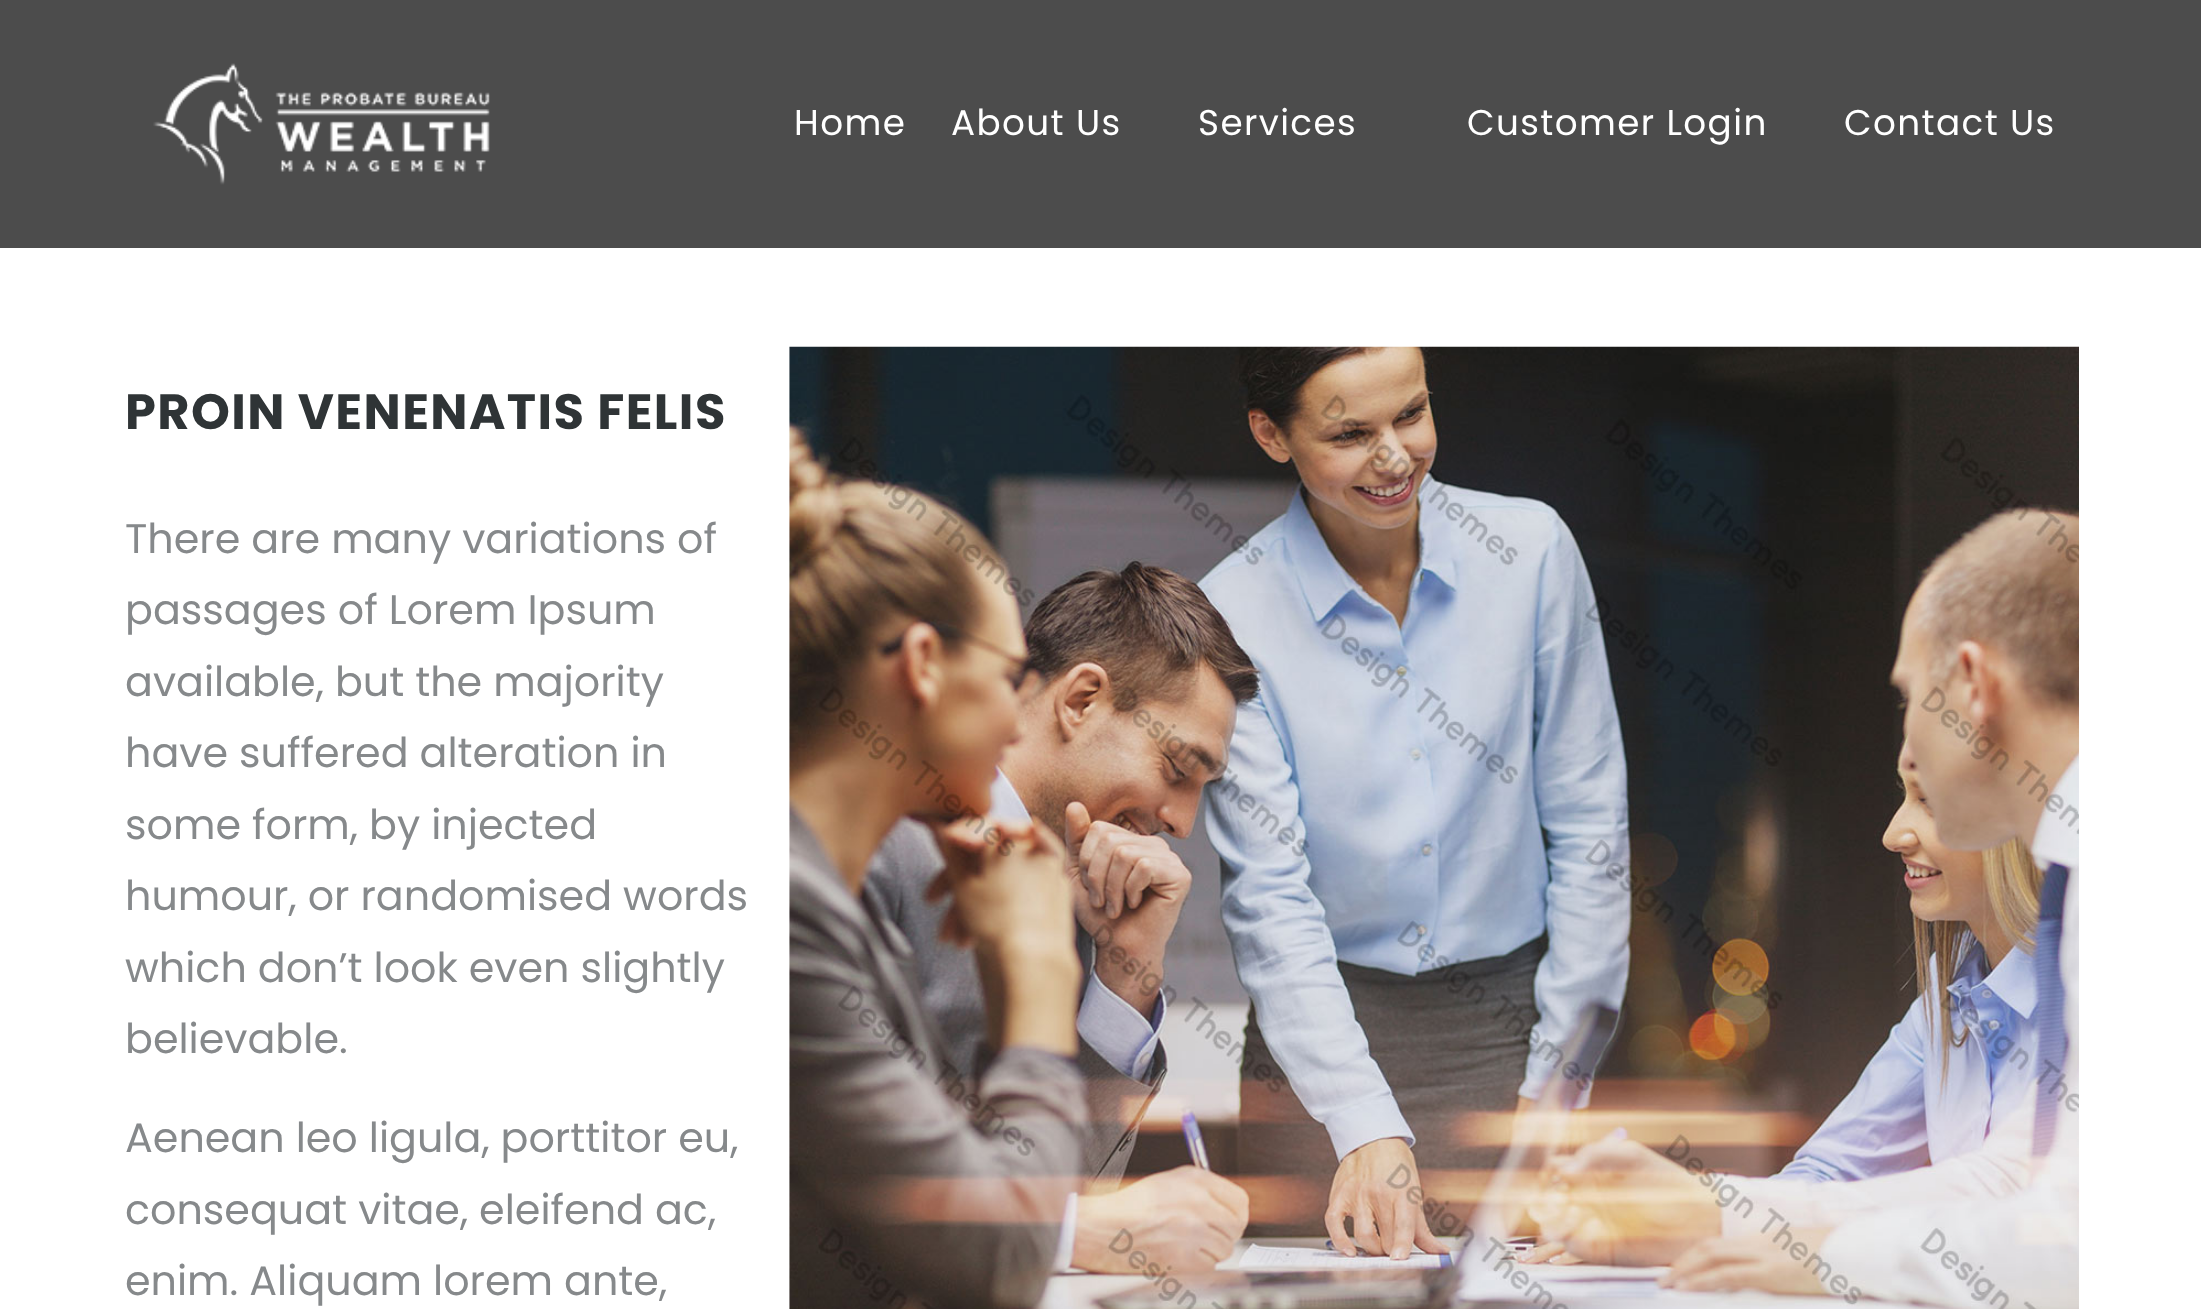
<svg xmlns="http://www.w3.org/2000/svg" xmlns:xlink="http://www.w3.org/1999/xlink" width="2201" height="1309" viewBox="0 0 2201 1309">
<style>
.cls-1{font:35.75px Poppins;letter-spacing:1.4px;fill:#ffffff}
.cls-2{font:bold 49.5px Poppins;letter-spacing:1.4px;fill:#2f3436}
.cls-3{font:41.25px Poppins;fill:#86898b}
</style>
<rect width="100%" height="100%" fill="#ffffff"/>
<rect fill="#000000" fill-opacity="0.7" x="0" y="0" width="2201" height="248"/>
<image xlink:href="image0.png" x="153" y="63" width="337" height="122"/>
<image xlink:href="image1.png" x="789" y="346" width="1290" height="963"/>
<text class="cls-1" x="794" y="135">Home</text>
<text class="cls-1" x="951" y="135">About Us</text>
<text class="cls-1" x="1198" y="135">Services</text>
<text class="cls-1" x="1467" y="135">Customer Login</text>
<text class="cls-1" x="1844" y="135">Contact Us</text>
<text class="cls-2" x="125" y="429">PROIN VENENATIS FELIS</text>
<text class="cls-3"><tspan x="125" y="553">There are many variations of</tspan><tspan x="125" y="624">passages of Lorem Ipsum</tspan><tspan x="125" y="696">available, but the majority</tspan><tspan x="125" y="767">have suffered alteration in</tspan><tspan x="125" y="839">some form, by injected</tspan><tspan x="125" y="910">humour, or randomised words</tspan><tspan x="125" y="982">which don’t look even slightly</tspan><tspan x="125" y="1053">believable.</tspan></text>
<text class="cls-3"><tspan x="125" y="1152">Aenean leo ligula, porttitor eu,</tspan><tspan x="125" y="1224">consequat vitae, eleifend ac,</tspan><tspan x="125" y="1295">enim. Aliquam lorem ante,</tspan></text>
</svg>
